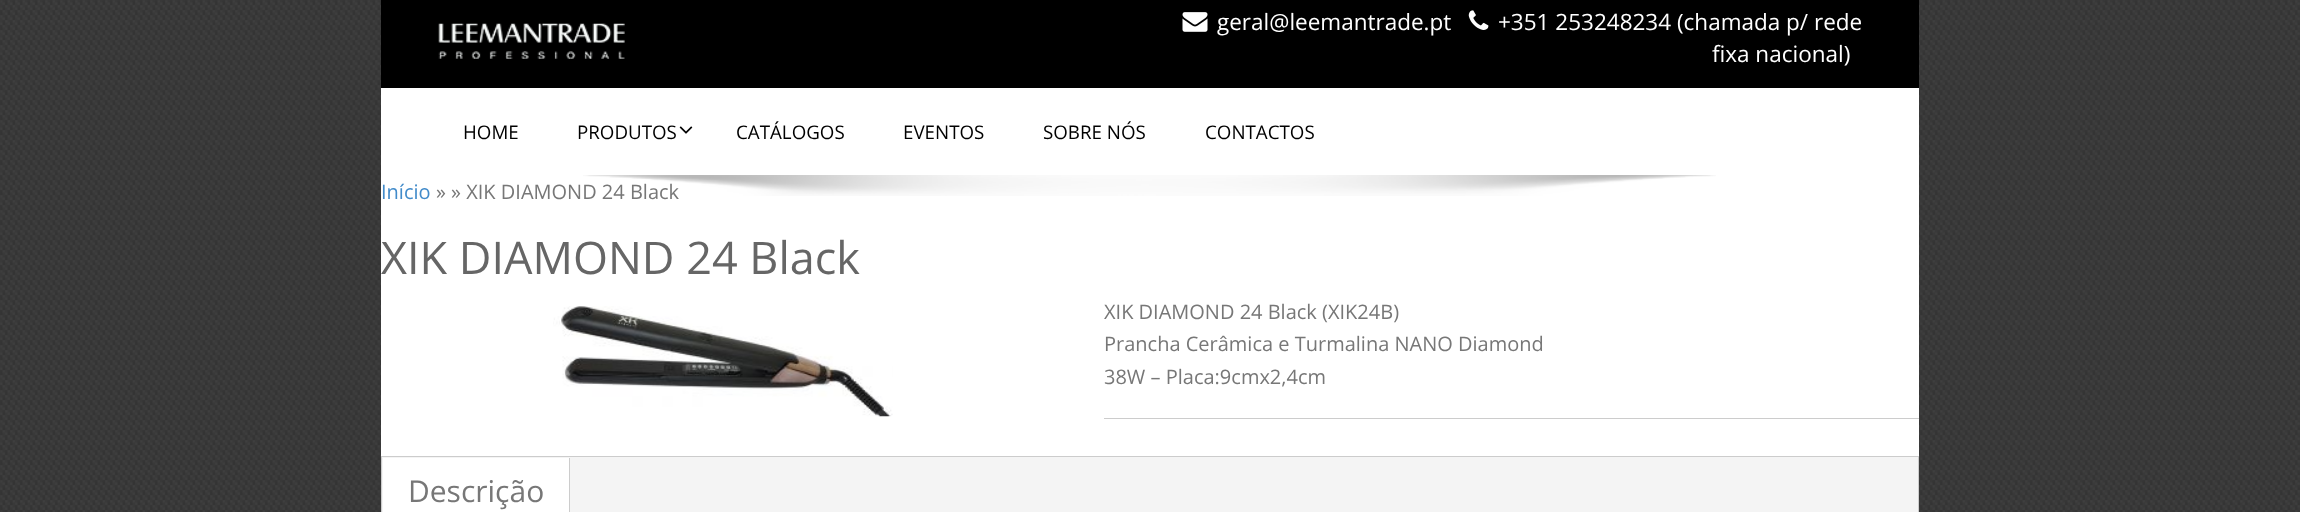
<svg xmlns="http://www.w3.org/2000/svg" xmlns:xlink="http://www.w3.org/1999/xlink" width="2300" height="512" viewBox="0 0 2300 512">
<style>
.cls-1{font:22.5px Open Sans;fill:#ffffff}
.cls-2{font:18.75px Open Sans;fill:#000000}
.cls-3{font:20px Open Sans;fill:#428bca}
.cls-4{font:20px Open Sans;fill:#777777}
.cls-5{font:45px Open Sans;fill:#666666}
.cls-6{font:30px Open Sans;fill:#777777}
</style>
<rect width="100%" height="100%" fill="#ffffff"/>
<image xlink:href="image0.png" x="0" y="0" width="2300" height="512"/>
<rect fill="#ffffff" x="381" y="88" width="1538" height="368"/>
<rect fill="#000000" x="381" y="0" width="1538" height="88"/>
<image xlink:href="image1.png" x="438" y="23" width="187" height="36"/>
<image xlink:href="image2.png" x="1182" y="12" width="26" height="20"/>
<image xlink:href="image3.png" x="1468" y="10" width="21" height="20"/>
<image xlink:href="image4.png" x="679" y="126" width="14" height="8"/>
<image xlink:href="image6.png" x="553" y="306" width="340" height="111"/>
<rect fill="#cccccc" x="1104" y="418" width="815" height="1"/>
<rect fill="#f4f4f4" stroke="#cccccc" x="381.5" y="456.5" width="1537" height="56"/>
<rect fill="#ffffff" x="383" y="458" width="186" height="54"/>
<rect fill="#cccccc" x="569" y="458" width="1" height="54"/>
<text class="cls-1" x="1217" y="30">geral@leemantrade.pt</text>
<text class="cls-1" x="1498" y="30">+351 253248234 (chamada p/ rede</text>
<text class="cls-1" x="1712" y="62">fixa nacional)</text>
<text class="cls-2" x="463" y="139">HOME</text>
<text class="cls-2" x="577" y="139">PRODUTOS</text>
<text class="cls-2" x="736" y="139">CATÁLOGOS</text>
<text class="cls-2" x="903" y="139">EVENTOS</text>
<text class="cls-2" x="1043" y="139">SOBRE NÓS</text>
<text class="cls-2" x="1205" y="139">CONTACTOS</text>
<text class="cls-3" x="381" y="199">Início</text>
<text class="cls-4" x="436" y="199">» » XIK DIAMOND 24 Black</text>
<image xlink:href="image5.png" x="583" y="175" width="1133" height="21"/>
<text class="cls-5" x="381" y="274">XIK DIAMOND 24 Black</text>
<text class="cls-4"><tspan x="1104" y="319">XIK DIAMOND 24 Black (XIK24B)</tspan><tspan x="1104" y="351">Prancha Cerâmica e Turmalina NANO Diamond</tspan><tspan x="1104" y="384">38W – Placa:9cmx2,4cm</tspan></text>
<text class="cls-6" x="408" y="502">Descrição</text>
</svg>
